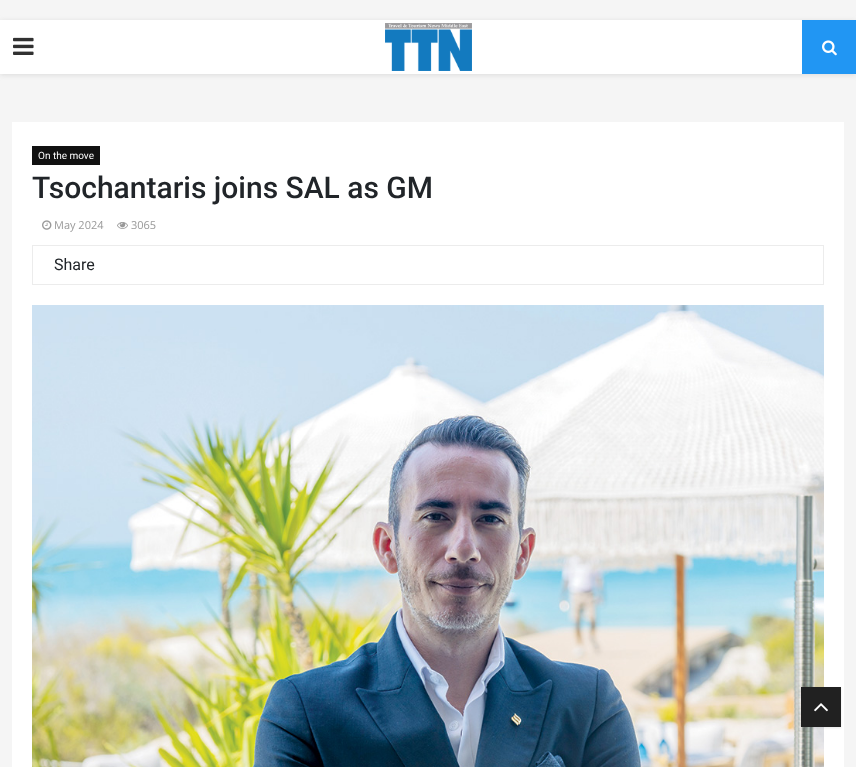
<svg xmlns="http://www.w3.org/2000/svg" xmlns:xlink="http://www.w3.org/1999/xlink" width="856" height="767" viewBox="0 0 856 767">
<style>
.cls-1{font:10px Roboto;fill:#ffffff}
.cls-2{font:500 30px Roboto;fill:#212529}
.cls-3{font:11px Open Sans;fill:#999999}
.cls-4{font:16px Roboto;fill:#212529}
</style>
<rect width="100%" height="100%" fill="#f5f5f5"/>
<rect fill="#bebebe" fill-opacity="0.46" filter="blur(2.5px)" x="0" y="21" width="856" height="54"/>
<rect fill="#ffffff" x="0" y="20" width="802" height="54"/>
<image xlink:href="image0.png" x="13" y="37" width="21" height="18"/>
<image xlink:href="image1.png" x="385" y="23" width="87" height="48"/>
<rect fill="#2196f3" x="802" y="20" width="54" height="54"/>
<image xlink:href="image2.png" x="822" y="40" width="15" height="16"/>
<rect fill="#ffffff" x="12" y="122" width="832" height="645"/>
<rect fill="#111111" x="32" y="146" width="68" height="19"/>
<image xlink:href="image3.png" x="42" y="220" width="10" height="10"/>
<image xlink:href="image4.png" x="117" y="222" width="11" height="7"/>
<rect fill="none" stroke="#ececec" x="32.5" y="245.5" width="791" height="39"/>
<image xlink:href="image5.png" x="32" y="305" width="792" height="462"/>
<rect fill="#000000" fill-opacity="0.1" filter="blur(1px)" x="801" y="688" width="40" height="40"/>
<rect fill="#212121" x="801" y="687" width="40" height="40"/>
<image xlink:href="image6.png" x="814" y="703" width="14" height="9"/>
<text class="cls-1" x="38" y="159">On the move</text>
<text class="cls-2" x="32" y="198">Tsochantaris joins SAL as GM</text>
<text class="cls-3" x="54" y="229">May 2024</text>
<text class="cls-3" x="131" y="229">3065</text>
<text class="cls-4" x="54" y="270">Share</text>
</svg>
